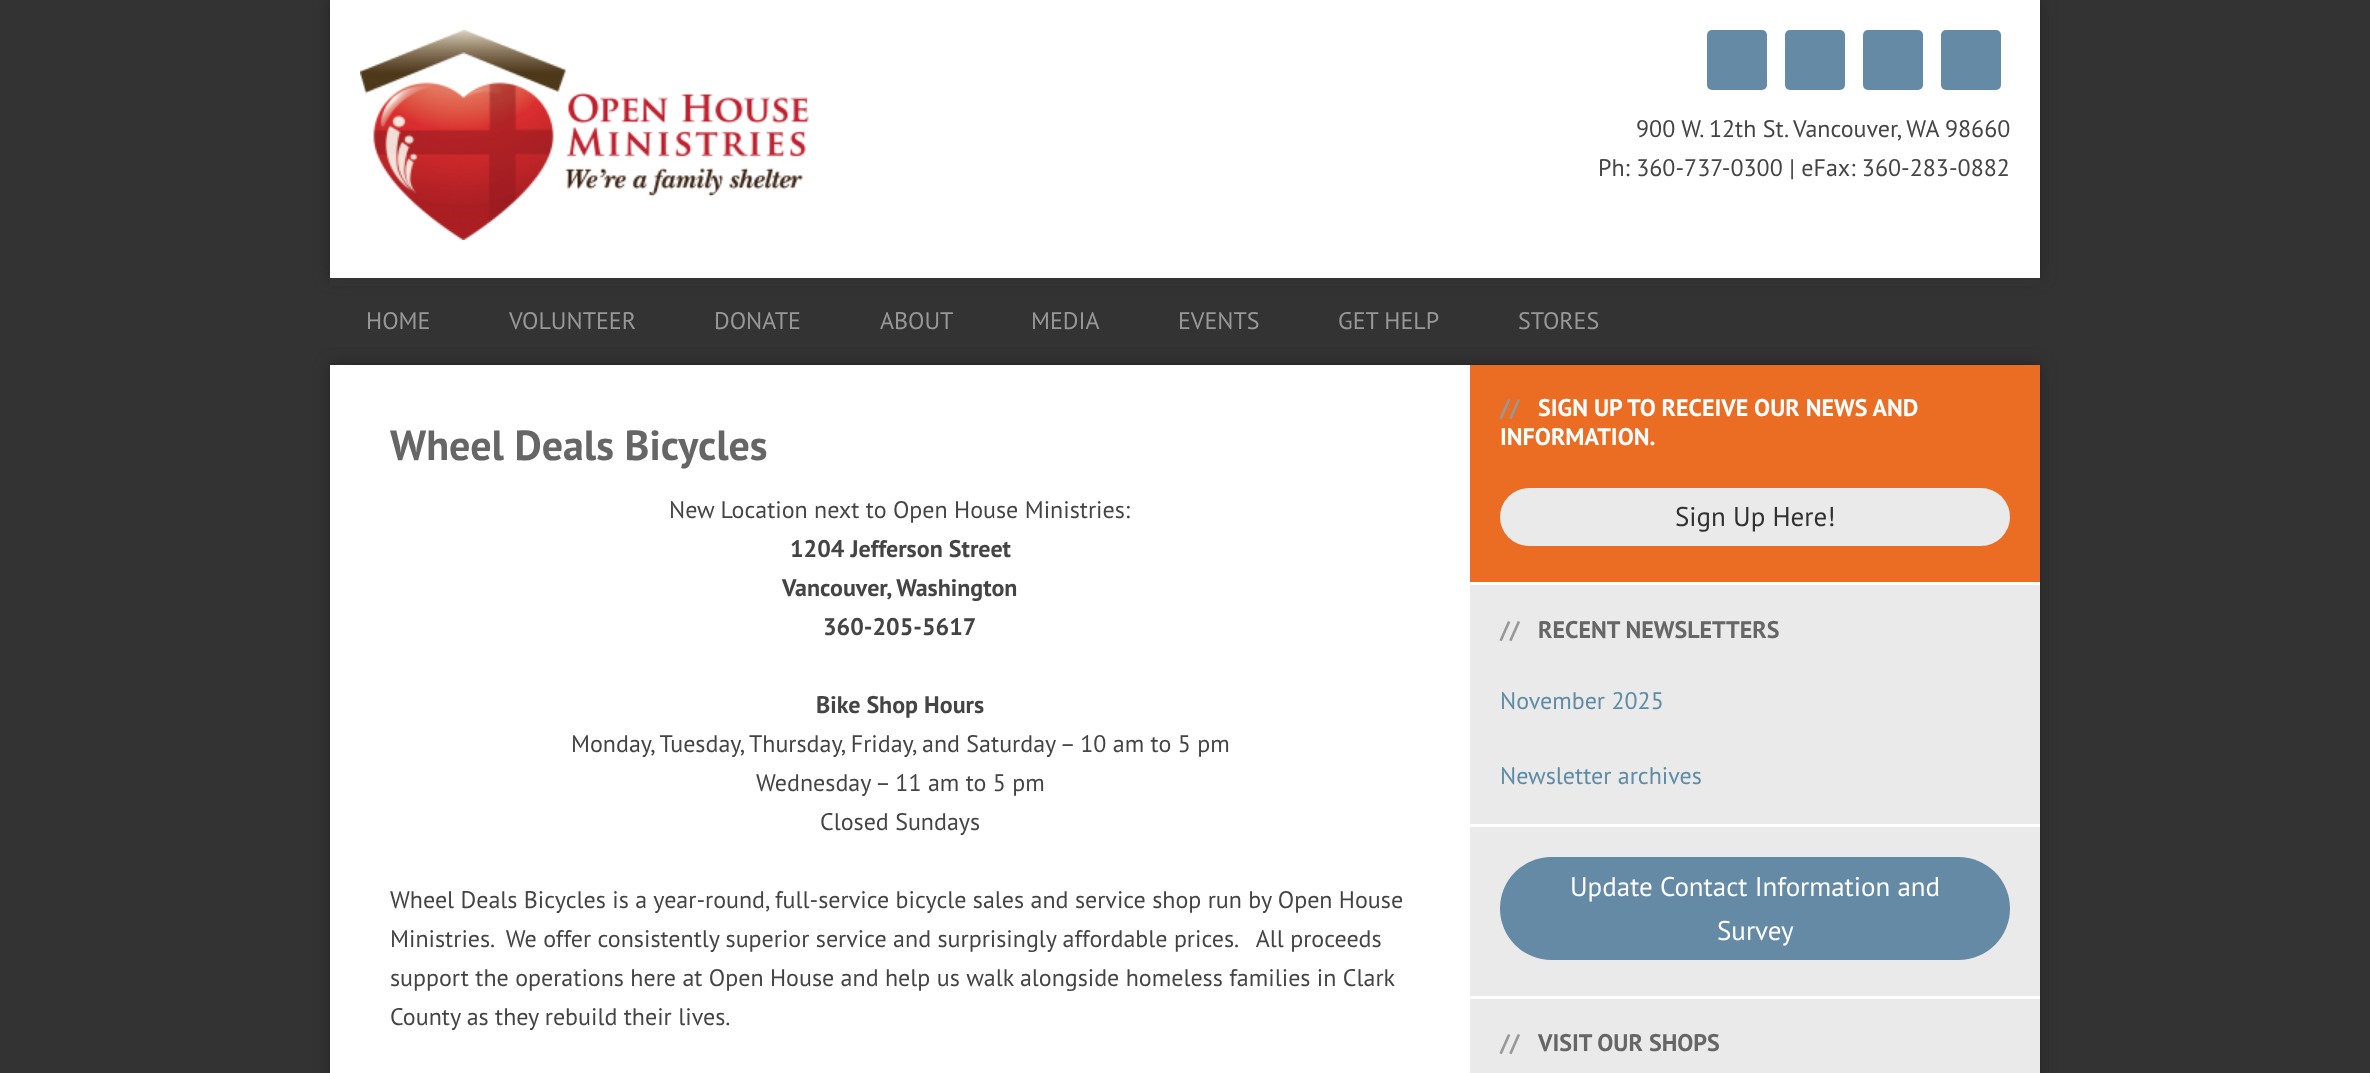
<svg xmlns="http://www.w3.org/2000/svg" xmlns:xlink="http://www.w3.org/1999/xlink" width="2370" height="1073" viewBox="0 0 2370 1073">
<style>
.cls-1{font:24px PT Sans;fill:#444444}
.cls-2{font:24px PT Sans;fill:#989898}
.cls-3{font:bold 42px PT Sans;fill:#666666}
.cls-4{font:bold 24px PT Sans;fill:#444444}
.cls-5{font:bold 24px PT Sans;fill:#989898}
.cls-6{font:bold 24px PT Sans;fill:#ffffff}
.cls-7{font:27px PT Sans;fill:#313131}
.cls-8{font:bold 24px PT Sans;fill:#666666}
.cls-9{font:24px PT Sans;fill:#5e8ba5}
.cls-10{font:27px PT Sans;fill:#ffffff}
</style>
<rect width="100%" height="100%" fill="#333333"/>
<rect fill="#222222" filter="blur(7.5px)" x="330" y="0" width="1710" height="278"/>
<rect fill="#ffffff" x="330" y="0" width="1710" height="278"/>
<image xlink:href="image0.png" x="360" y="30" width="449" height="210"/>
<rect fill="#658aa5" x="1707" y="30" width="60" height="60" rx="5"/>
<rect fill="#658aa5" x="1785" y="30" width="60" height="60" rx="5"/>
<rect fill="#658aa5" x="1863" y="30" width="60" height="60" rx="5"/>
<rect fill="#658aa5" x="1941" y="30" width="60" height="60" rx="5"/>
<rect fill="#333333" x="330" y="278" width="1710" height="8"/>
<rect fill="#222222" filter="blur(7.5px)" x="330" y="365" width="1710" height="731"/>
<rect fill="#ffffff" x="330" y="365" width="1140" height="708"/>
<rect fill="#ea6d23" x="1470" y="365" width="570" height="217"/>
<rect fill="#ffffff" x="1470" y="582" width="570" height="3"/>
<rect fill="#eaeaea" x="1500" y="488" width="510" height="58" rx="29"/>
<rect fill="#eaeaea" x="1470" y="585" width="570" height="239"/>
<rect fill="#ffffff" x="1470" y="824" width="570" height="3"/>
<rect fill="#eaeaea" x="1470" y="827" width="570" height="169"/>
<rect fill="#ffffff" x="1470" y="996" width="570" height="3"/>
<rect fill="#658aa5" x="1500" y="857" width="510" height="103" rx="51.5"/>
<rect fill="#eaeaea" x="1470" y="999" width="570" height="74"/>
<text class="cls-1" x="1636" y="137">900 W. 12th St. Vancouver, WA 98660</text>
<text class="cls-1" x="1598" y="176">Ph: 360-737-0300 | eFax: 360-283-0882</text>
<text class="cls-2" x="366" y="329">HOME</text>
<text class="cls-2" x="509" y="329">VOLUNTEER</text>
<text class="cls-2" x="714" y="329">DONATE</text>
<text class="cls-2" x="880" y="329">ABOUT</text>
<text class="cls-2" x="1031" y="329">MEDIA</text>
<text class="cls-2" x="1178" y="329">EVENTS</text>
<text class="cls-2" x="1338" y="329">GET HELP</text>
<text class="cls-2" x="1518" y="329">STORES</text>
<text class="cls-3" x="390" y="460">Wheel Deals Bicycles</text>
<text class="cls-1" x="669" y="518">New Location next to Open House Ministries:</text>
<text class="cls-4" x="790" y="557">1204 Jefferson Street</text>
<text class="cls-4" x="782" y="596">Vancouver, Washington</text>
<text class="cls-4" x="823" y="635">360-205-5617</text>
<text class="cls-4" x="816" y="713">Bike Shop Hours</text>
<text class="cls-1" x="571" y="752">Monday, Tuesday, Thursday, Friday, and Saturday – 10 am to 5 pm</text>
<text class="cls-1" x="756" y="791">Wednesday – 11 am to 5 pm</text>
<text class="cls-1" x="820" y="830">Closed Sundays</text>
<text class="cls-1" xml:space="preserve"><tspan x="390" y="908">Wheel Deals Bicycles is a year-round, full-service bicycle sales and service shop run by Open House</tspan><tspan x="390" y="947">Ministries.  We offer consistently superior service and surprisingly affordable prices.   All proceeds</tspan><tspan x="390" y="986">support the operations here at Open House and help us walk alongside homeless families in Clark</tspan><tspan x="390" y="1025">County as they rebuild their lives.</tspan></text>
<text class="cls-5" x="1500" y="416">//</text>
<text class="cls-6" x="1538" y="416">SIGN UP TO RECEIVE OUR NEWS AND</text>
<text class="cls-6" x="1500" y="445">INFORMATION.</text>
<text class="cls-7" x="1675" y="526">Sign Up Here!</text>
<text class="cls-5" x="1500" y="638">//</text>
<text class="cls-8" x="1538" y="638">RECENT NEWSLETTERS</text>
<text class="cls-9" x="1500" y="709">November 2025</text>
<text class="cls-9" x="1500" y="784">Newsletter archives</text>
<text class="cls-10" x="1570" y="896">Update Contact Information and</text>
<text class="cls-10" x="1717" y="940">Survey</text>
<text class="cls-5" x="1500" y="1051">//</text>
<text class="cls-8" x="1538" y="1051">VISIT OUR SHOPS</text>
</svg>
